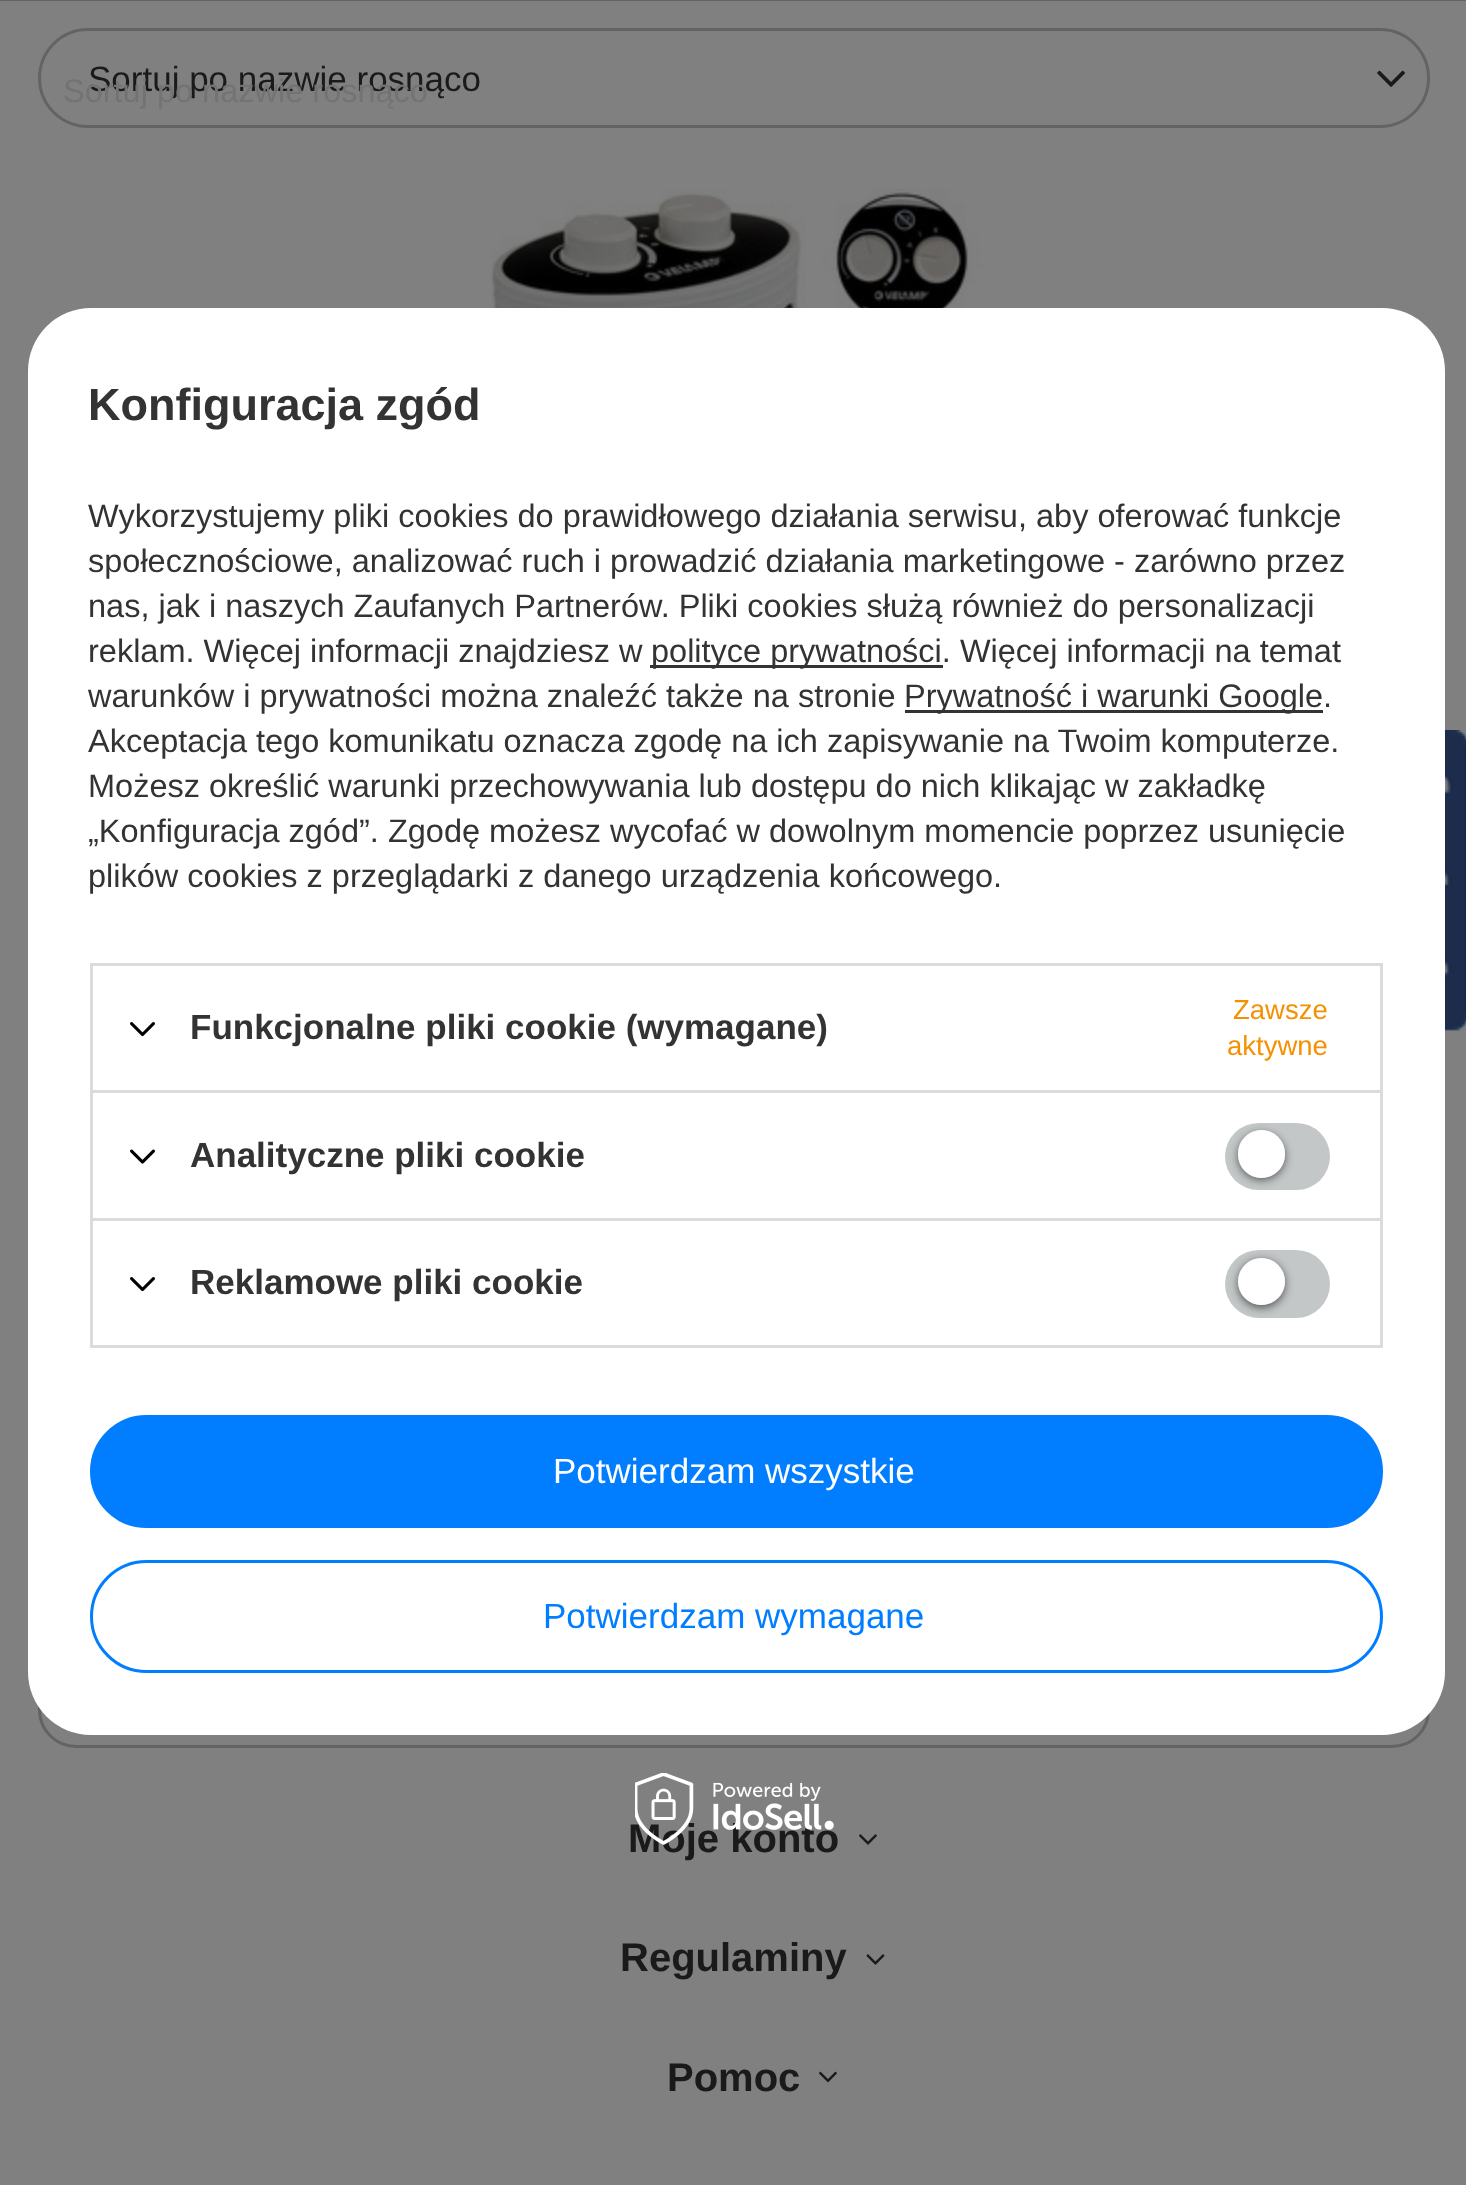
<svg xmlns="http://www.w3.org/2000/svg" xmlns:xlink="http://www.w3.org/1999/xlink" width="1466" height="2185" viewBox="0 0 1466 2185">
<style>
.cls-1{font:35px Liberation Sans;fill:#1a1a1a}
.cls-2{font:32.5px Liberation Sans;fill:#737373}
.cls-3{font:bold 45px Liberation Sans;fill:#333333}
.cls-4{font:32.5px Liberation Sans;fill:#333333}
.cls-5{font:bold 35px Liberation Sans;fill:#333333}
.cls-6{font:27.5px Liberation Sans;fill:#f59000}
.cls-7{font:35px Liberation Sans;fill:#ffffff}
.cls-8{font:35px Liberation Sans;fill:#007eff}
.cls-9{font:bold 40px Liberation Sans;fill:#1a1a1a}
</style>
<defs>
<clipPath id="clip1"><path d="M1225 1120H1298V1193H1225ZM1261.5 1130C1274.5 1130 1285 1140.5 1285 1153.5V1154.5C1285 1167.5 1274.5 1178 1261.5 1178C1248.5 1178 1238 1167.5 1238 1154.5V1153.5C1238 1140.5 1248.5 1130 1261.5 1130Z" clip-rule="evenodd"/></clipPath>
<clipPath id="clip2"><path d="M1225 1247H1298V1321H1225ZM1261.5 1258C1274.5 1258 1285 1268.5 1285 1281.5C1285 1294.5 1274.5 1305 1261.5 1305C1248.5 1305 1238 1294.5 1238 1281.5C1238 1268.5 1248.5 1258 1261.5 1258Z" clip-rule="evenodd"/></clipPath>
</defs>
<rect width="100%" height="100%" fill="#808080"/>
<rect fill="#626464" x="0" y="0" width="1466" height="1"/>
<rect fill="none" stroke="#626464" stroke-width="3" x="39.5" y="29.5" width="1389" height="97" rx="48.5"/>
<image xlink:href="image0.png" x="1377" y="70" width="28" height="17"/>
<image xlink:href="image1.png" x="491" y="189" width="494" height="119"/>
<rect fill="none" stroke="#626464" stroke-width="3" x="39.5" y="1136.5" width="1389" height="610" rx="36.5"/>
<rect fill="#ffffff" x="28" y="308" width="1417" height="1427" rx="63"/>
<rect fill="#333333" x="650" y="665" width="293" height="3"/>
<rect fill="#333333" x="905" y="710" width="418" height="3"/>
<rect fill="#dbdbdb" x="90" y="963" width="1293" height="3"/>
<rect fill="#dbdbdb" x="1380" y="963" width="3" height="127"/>
<rect fill="#dbdbdb" x="90" y="963" width="3" height="127"/>
<image xlink:href="image2.png" x="130" y="1022" width="25" height="15"/>
<rect fill="#dbdbdb" x="90" y="1090" width="1293" height="3"/>
<rect fill="#dbdbdb" x="1380" y="1090" width="3" height="128"/>
<rect fill="#dbdbdb" x="90" y="1090" width="3" height="128"/>
<image xlink:href="image3.png" x="130" y="1149" width="25" height="15"/>
<rect fill="#c4c7c8" x="1225" y="1123" width="105" height="67" rx="33.5"/>
<g clip-path="url(#clip1)">
<rect fill="#000000" fill-opacity="0.56" filter="blur(4px)" x="1238" y="1133" width="47" height="47" rx="23.5"/>
</g>
<rect fill="#ffffff" x="1238" y="1130" width="47" height="48" rx="23.5"/>
<rect fill="none" stroke="#dbdbdb" stroke-width="3" x="91.5" y="1219.5" width="1290" height="127"/>
<image xlink:href="image2.png" x="130" y="1277" width="25" height="15"/>
<rect fill="#c4c7c8" x="1225" y="1250" width="105" height="68" rx="34"/>
<g clip-path="url(#clip2)">
<rect fill="#000000" fill-opacity="0.56" filter="blur(4px)" x="1238" y="1260" width="47" height="48" rx="23.5"/>
</g>
<circle fill="#ffffff" cx="1261.5" cy="1281.5" r="23.5"/>
<rect fill="#007eff" stroke="#007eff" stroke-width="3" x="91.5" y="1416.5" width="1290" height="110" rx="55"/>
<rect fill="none" stroke="#007eff" stroke-width="3" x="91.5" y="1561.5" width="1290" height="110" rx="55"/>
<image xlink:href="image5.png" x="1445" y="730" width="21" height="301"/>
<image xlink:href="image6.png" x="859" y="1834" width="18" height="11"/>
<image xlink:href="image7.png" x="866" y="1954" width="19" height="11"/>
<image xlink:href="image8.png" x="818" y="2071" width="19" height="12"/>
<text class="cls-1" x="88" y="91">Sortuj po nazwie rosnąco</text>
<text class="cls-2" x="63" y="102">Sortuj po nazwie rosnąco</text>
<text class="cls-3" x="88" y="420">Konfiguracja zgód</text>
<text class="cls-4"><tspan x="88" y="527">Wykorzystujemy pliki cookies do prawidłowego działania serwisu, aby oferować funkcje</tspan><tspan x="88" y="572">społecznościowe, analizować ruch i prowadzić działania marketingowe - zarówno przez</tspan><tspan x="88" y="617">nas, jak i naszych Zaufanych Partnerów. Pliki cookies służą również do personalizacji</tspan><tspan x="88" y="662">reklam. Więcej informacji znajdziesz w</tspan></text>
<text class="cls-4" x="651" y="662">polityce prywatności. Więcej informacji na temat</text>
<text class="cls-4" x="88" y="707">warunków i prywatności można znaleźć także na stronie</text>
<text class="cls-4" x="904" y="707">Prywatność i warunki Google.</text>
<text class="cls-4"><tspan x="88" y="752">Akceptacja tego komunikatu oznacza zgodę na ich zapisywanie na Twoim komputerze.</tspan><tspan x="88" y="797">Możesz określić warunki przechowywania lub dostępu do nich klikając w zakładkę</tspan><tspan x="88" y="842">„Konfiguracja zgód”. Zgodę możesz wycofać w dowolnym momencie poprzez usunięcie</tspan><tspan x="88" y="887">plików cookies z przeglądarki z danego urządzenia końcowego.</tspan></text>
<text class="cls-5" x="190" y="1039">Funkcjonalne pliki cookie (wymagane)</text>
<text class="cls-6" x="1233" y="1019">Zawsze</text>
<text class="cls-6" x="1227" y="1055">aktywne</text>
<text class="cls-5" x="190" y="1167">Analityczne pliki cookie</text>
<text class="cls-5" x="190" y="1294">Reklamowe pliki cookie</text>
<text class="cls-7" x="553" y="1483">Potwierdzam wszystkie</text>
<text class="cls-8" x="543" y="1628">Potwierdzam wymagane</text>
<text class="cls-9" x="628" y="1852">Moje konto</text>
<image xlink:href="image4.png" x="635" y="1773" width="199" height="72"/>
<text class="cls-9" x="620" y="1971">Regulaminy</text>
<text class="cls-9" x="667" y="2091">Pomoc</text>
</svg>
